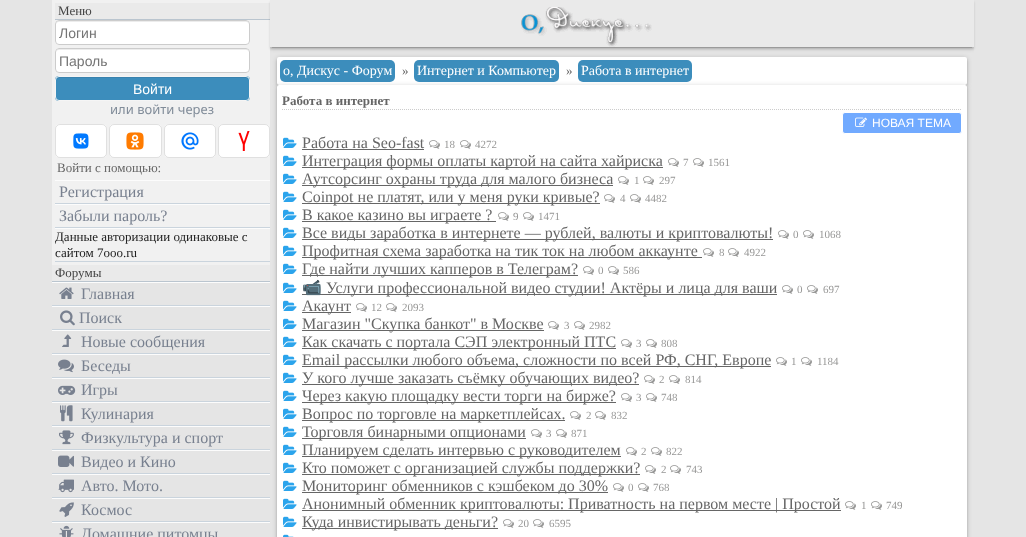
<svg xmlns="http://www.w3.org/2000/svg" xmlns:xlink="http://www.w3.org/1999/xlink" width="1026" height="537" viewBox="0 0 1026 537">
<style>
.cls-1{font:13px Liberation Serif;fill:#444444}
.cls-2{font:14px Liberation Sans;fill:#757575}
.cls-3{font:14px Liberation Sans;fill:#ffffff}
.cls-4{font:13px Noto Sans;fill:#818c99}
.cls-5{font:13px Liberation Serif;fill:#666666}
.cls-6{font:16px Liberation Serif;fill:#78808f}
.cls-7{font:13px Liberation Serif;fill:#222222}
.cls-8{font:14px Liberation Serif;fill:#ffffff}
.cls-9{font:bold 13px Liberation Serif;fill:#666666}
.cls-10{font:12px Liberation Sans;fill:#ffffff}
.cls-11{font:16px Liberation Serif;fill:#666666}
.cls-12{font:11px Liberation Serif;fill:#979796}
.cls-13{font:16px Noto Color Emoji;fill:#666666}
</style>
<defs>
<clipPath id="clip1"><rect x="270" y="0" width="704" height="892"/></clipPath>
</defs>
<rect width="100%" height="100%" fill="#e5e5e5"/>
<rect fill="#f1f1f1" x="52" y="0" width="218" height="265"/>
<rect fill="#eaeaea" x="55" y="3" width="215" height="16"/>
<rect fill="#bac5cf" x="55" y="19" width="215" height="1"/>
<rect fill="#ffffff" x="55" y="20" width="195" height="25" rx="4"/>
<path fill="#ececec" d="M59 22H246C248 22 249 23 249 25C249 23 248 21 246 21H59C57 21 56 23 56 25C56 23 57 22 59 22Z"/>
<rect fill="none" stroke="#cccccc" x="55.5" y="20.5" width="194" height="24" rx="3.5"/>
<rect fill="#ffffff" x="55" y="48" width="195" height="25" rx="4"/>
<path fill="#ececec" d="M59 50H246C248 50 249 51 249 53C249 51 248 49 246 49H59C57 49 56 51 56 53C56 51 57 50 59 50Z"/>
<rect fill="none" stroke="#cccccc" x="55.5" y="48.5" width="194" height="24" rx="3.5"/>
<rect fill="#3c8dbc" x="55" y="76" width="195" height="25" rx="4"/>
<path fill="#3882ae" d="M59 78H246C248 78 249 79 249 81C249 79 248 77 246 77H59C57 77 56 79 56 81C56 79 57 78 59 78Z"/>
<rect fill="none" stroke="#f5f5f5" x="55.5" y="76.5" width="194" height="24" rx="3.5"/>
<rect fill="#ffffff" x="55" y="124" width="52" height="34" rx="5"/>
<rect fill="none" stroke="#000000" stroke-opacity="0.12" x="55.5" y="124.5" width="51" height="33" rx="4.5"/>
<image xlink:href="image0.png" x="73" y="133" width="16" height="16"/>
<rect fill="#ffffff" x="109" y="124" width="53" height="34" rx="5"/>
<rect fill="none" stroke="#000000" stroke-opacity="0.12" x="109.5" y="124.5" width="52" height="33" rx="4.5"/>
<image xlink:href="image1.png" x="126" y="132" width="18" height="18"/>
<rect fill="#ffffff" x="164" y="124" width="52" height="34" rx="5"/>
<rect fill="none" stroke="#000000" stroke-opacity="0.12" x="164.5" y="124.5" width="51" height="33" rx="4.5"/>
<image xlink:href="image2.png" x="181" y="132" width="18" height="18"/>
<rect fill="#ffffff" x="218" y="124" width="52" height="34" rx="5"/>
<rect fill="none" stroke="#000000" stroke-opacity="0.12" x="218.5" y="124.5" width="51" height="33" rx="4.5"/>
<image xlink:href="image3.png" x="238" y="131" width="12" height="20"/>
<rect fill="#fcfcfc" x="55" y="180" width="215" height="1"/>
<rect fill="#cad4dd" x="55" y="203" width="215" height="1"/>
<rect fill="#fcfcfc" x="55" y="204" width="215" height="1"/>
<rect fill="#cad4dd" x="55" y="227" width="215" height="1"/>
<rect fill="#fcfcfc" x="55" y="228" width="215" height="1"/>
<rect fill="#cad4dd" x="55" y="261" width="215" height="1"/>
<rect fill="#eaeaea" x="52" y="265" width="218" height="16"/>
<rect fill="#bac5cf" x="52" y="281" width="218" height="1"/>
<rect fill="#fcfcfc" x="52" y="282" width="218" height="1"/>
<rect fill="#cad4dd" x="52" y="305" width="218" height="1"/>
<image xlink:href="image4.png" x="59" y="287" width="15" height="12"/>
<rect fill="#fcfcfc" x="52" y="306" width="218" height="1"/>
<rect fill="#cad4dd" x="52" y="329" width="218" height="1"/>
<image xlink:href="image5.png" x="60" y="310" width="15" height="16"/>
<rect fill="#fcfcfc" x="52" y="330" width="218" height="1"/>
<rect fill="#cad4dd" x="52" y="353" width="218" height="1"/>
<image xlink:href="image6.png" x="62" y="334" width="10" height="13"/>
<rect fill="#fcfcfc" x="52" y="354" width="218" height="1"/>
<rect fill="#cad4dd" x="52" y="377" width="218" height="1"/>
<image xlink:href="image7.png" x="58" y="359" width="16" height="14"/>
<rect fill="#fcfcfc" x="52" y="378" width="218" height="1"/>
<rect fill="#cad4dd" x="52" y="401" width="218" height="1"/>
<image xlink:href="image8.png" x="58" y="385" width="18" height="10"/>
<rect fill="#fcfcfc" x="52" y="402" width="218" height="1"/>
<rect fill="#cad4dd" x="52" y="425" width="218" height="1"/>
<image xlink:href="image9.png" x="60" y="405" width="13" height="17"/>
<rect fill="#fcfcfc" x="52" y="426" width="218" height="1"/>
<rect fill="#cad4dd" x="52" y="449" width="218" height="1"/>
<image xlink:href="image10.png" x="59" y="430" width="15" height="15"/>
<rect fill="#fcfcfc" x="52" y="450" width="218" height="1"/>
<rect fill="#cad4dd" x="52" y="473" width="218" height="1"/>
<image xlink:href="image11.png" x="58" y="455" width="16" height="12"/>
<rect fill="#fcfcfc" x="52" y="474" width="218" height="1"/>
<rect fill="#cad4dd" x="52" y="497" width="218" height="1"/>
<image xlink:href="image12.png" x="58" y="479" width="16" height="14"/>
<rect fill="#fcfcfc" x="52" y="498" width="218" height="1"/>
<rect fill="#cad4dd" x="52" y="521" width="218" height="1"/>
<image xlink:href="image13.png" x="59" y="502" width="15" height="15"/>
<rect fill="#fcfcfc" x="52" y="522" width="218" height="1"/>
<image xlink:href="image14.png" x="59" y="525" width="15" height="12"/>
<g clip-path="url(#clip1)">
<rect fill="#000000" fill-opacity="0.2" filter="blur(2.5px)" x="270" y="1" width="704" height="47"/>
</g>
<rect fill="#000000" fill-opacity="0.12" filter="blur(0.5px)" x="272" y="5" width="700" height="43"/>
<rect fill="#000000" fill-opacity="0.14" filter="blur(1px)" x="270" y="2" width="704" height="47"/>
<rect fill="#eaeaea" x="270" y="0" width="704" height="47"/>
<image xlink:href="image15.png" x="521" y="7" width="131" height="40"/>
<rect fill="#000000" fill-opacity="0.2" filter="blur(2.5px)" x="277" y="58" width="690" height="28" rx="2"/>
<rect fill="#000000" fill-opacity="0.14" filter="blur(1px)" x="277" y="59" width="690" height="28" rx="2"/>
<rect fill="#ffffff" x="277" y="57" width="690" height="28" rx="2"/>
<rect fill="#000000" fill-opacity="0.2" filter="blur(2.5px)" x="277" y="86" width="690" height="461" rx="2"/>
<rect fill="#3c8dbc" x="280" y="60" width="115" height="22" rx="5"/>
<rect fill="#3c8dbc" x="414" y="60" width="145" height="22" rx="5"/>
<rect fill="#3c8dbc" x="578" y="60" width="114" height="22" rx="5"/>
<rect fill="#000000" fill-opacity="0.14" filter="blur(1px)" x="277" y="87" width="690" height="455" rx="2"/>
<rect fill="#ffffff" x="277" y="85" width="690" height="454" rx="2"/>
<path fill="none" stroke="#cccccc" stroke-dasharray="1 1" d="M282 109.5H962"/>
<rect fill="#71aaff" stroke="#ffffff" x="842.5" y="112.5" width="119" height="21" rx="2.5"/>
<image xlink:href="image16.png" x="855" y="117" width="12" height="10"/>
<image xlink:href="image17.png" x="283" y="137" width="14" height="11"/>
<rect fill="#666666" x="302" y="149" width="122" height="1"/>
<image xlink:href="image18.png" x="429" y="140" width="11" height="9"/>
<image xlink:href="image18.png" x="460" y="140" width="11" height="9"/>
<image xlink:href="image17.png" x="283" y="155" width="14" height="11"/>
<rect fill="#666666" x="302" y="167" width="361" height="1"/>
<image xlink:href="image18.png" x="668" y="158" width="11" height="9"/>
<image xlink:href="image18.png" x="693" y="158" width="11" height="9"/>
<image xlink:href="image17.png" x="283" y="173" width="14" height="11"/>
<rect fill="#666666" x="302" y="185" width="311" height="1"/>
<image xlink:href="image18.png" x="618" y="176" width="11" height="9"/>
<image xlink:href="image18.png" x="643" y="176" width="11" height="9"/>
<image xlink:href="image17.png" x="283" y="191" width="14" height="11"/>
<rect fill="#666666" x="302" y="203" width="298" height="1"/>
<image xlink:href="image18.png" x="604" y="194" width="11" height="9"/>
<image xlink:href="image18.png" x="630" y="194" width="11" height="9"/>
<image xlink:href="image17.png" x="283" y="209" width="14" height="11"/>
<rect fill="#666666" x="302" y="221" width="194" height="1"/>
<image xlink:href="image18.png" x="498" y="212" width="11" height="9"/>
<image xlink:href="image18.png" x="523" y="212" width="11" height="9"/>
<image xlink:href="image17.png" x="283" y="227" width="14" height="11"/>
<rect fill="#666666" x="302" y="239" width="471" height="1"/>
<image xlink:href="image18.png" x="778" y="230" width="11" height="9"/>
<image xlink:href="image18.png" x="803" y="230" width="11" height="9"/>
<image xlink:href="image17.png" x="283" y="245" width="14" height="11"/>
<rect fill="#666666" x="302" y="257" width="400" height="1"/>
<image xlink:href="image18.png" x="703" y="248" width="11" height="9"/>
<image xlink:href="image18.png" x="728" y="248" width="11" height="9"/>
<image xlink:href="image17.png" x="283" y="263" width="14" height="11"/>
<rect fill="#666666" x="302" y="275" width="276" height="1"/>
<image xlink:href="image18.png" x="583" y="266" width="11" height="9"/>
<image xlink:href="image18.png" x="608" y="266" width="11" height="9"/>
<image xlink:href="image17.png" x="283" y="282" width="14" height="11"/>
<rect fill="#666666" x="302" y="294" width="475" height="1"/>
<image xlink:href="image18.png" x="782" y="285" width="11" height="9"/>
<image xlink:href="image18.png" x="807" y="285" width="11" height="9"/>
<image xlink:href="image17.png" x="283" y="300" width="14" height="11"/>
<rect fill="#666666" x="302" y="312" width="49" height="1"/>
<image xlink:href="image18.png" x="356" y="303" width="11" height="9"/>
<image xlink:href="image18.png" x="386" y="303" width="11" height="9"/>
<image xlink:href="image17.png" x="283" y="318" width="14" height="11"/>
<rect fill="#666666" x="302" y="330" width="242" height="1"/>
<image xlink:href="image18.png" x="548" y="321" width="11" height="9"/>
<image xlink:href="image18.png" x="574" y="321" width="11" height="9"/>
<image xlink:href="image17.png" x="283" y="336" width="14" height="11"/>
<rect fill="#666666" x="302" y="348" width="314" height="1"/>
<image xlink:href="image18.png" x="621" y="339" width="11" height="9"/>
<image xlink:href="image18.png" x="646" y="339" width="11" height="9"/>
<image xlink:href="image17.png" x="283" y="354" width="14" height="11"/>
<rect fill="#666666" x="302" y="366" width="469" height="1"/>
<image xlink:href="image18.png" x="776" y="357" width="11" height="9"/>
<image xlink:href="image18.png" x="801" y="357" width="11" height="9"/>
<image xlink:href="image17.png" x="283" y="372" width="14" height="11"/>
<rect fill="#666666" x="302" y="384" width="337" height="1"/>
<image xlink:href="image18.png" x="644" y="375" width="11" height="9"/>
<image xlink:href="image18.png" x="669" y="375" width="11" height="9"/>
<image xlink:href="image17.png" x="283" y="390" width="14" height="11"/>
<rect fill="#666666" x="302" y="402" width="314" height="1"/>
<image xlink:href="image18.png" x="621" y="393" width="11" height="9"/>
<image xlink:href="image18.png" x="646" y="393" width="11" height="9"/>
<image xlink:href="image17.png" x="283" y="408" width="14" height="11"/>
<rect fill="#666666" x="302" y="420" width="263" height="1"/>
<image xlink:href="image18.png" x="570" y="411" width="11" height="9"/>
<image xlink:href="image18.png" x="595" y="411" width="11" height="9"/>
<image xlink:href="image17.png" x="283" y="426" width="14" height="11"/>
<rect fill="#666666" x="302" y="438" width="224" height="1"/>
<image xlink:href="image18.png" x="531" y="429" width="11" height="9"/>
<image xlink:href="image18.png" x="556" y="429" width="11" height="9"/>
<image xlink:href="image17.png" x="283" y="444" width="14" height="11"/>
<rect fill="#666666" x="302" y="456" width="319" height="1"/>
<image xlink:href="image18.png" x="626" y="447" width="11" height="9"/>
<image xlink:href="image18.png" x="651" y="447" width="11" height="9"/>
<image xlink:href="image17.png" x="283" y="462" width="14" height="11"/>
<rect fill="#666666" x="302" y="474" width="338" height="1"/>
<image xlink:href="image18.png" x="645" y="465" width="11" height="9"/>
<image xlink:href="image18.png" x="670" y="465" width="11" height="9"/>
<image xlink:href="image17.png" x="283" y="480" width="14" height="11"/>
<rect fill="#666666" x="302" y="492" width="306" height="1"/>
<image xlink:href="image18.png" x="613" y="483" width="11" height="9"/>
<image xlink:href="image18.png" x="638" y="483" width="11" height="9"/>
<image xlink:href="image17.png" x="283" y="498" width="14" height="11"/>
<rect fill="#666666" x="302" y="510" width="539" height="1"/>
<image xlink:href="image18.png" x="845" y="501" width="11" height="9"/>
<image xlink:href="image18.png" x="871" y="501" width="11" height="9"/>
<image xlink:href="image17.png" x="283" y="516" width="14" height="11"/>
<rect fill="#666666" x="302" y="528" width="196" height="1"/>
<image xlink:href="image18.png" x="503" y="519" width="11" height="9"/>
<image xlink:href="image18.png" x="533" y="519" width="11" height="9"/>
<image xlink:href="image19.png" x="283" y="534" width="11" height="3"/>
<text class="cls-1" x="58" y="15">Меню</text>
<text class="cls-2" x="59" y="38">Логин</text>
<text class="cls-2" x="59" y="66">Пароль</text>
<text class="cls-3" x="133" y="94">Войти</text>
<text class="cls-4" x="110" y="114">или войти через</text>
<text class="cls-5" x="57" y="172">Войти с помощью:</text>
<text class="cls-6"><tspan x="59" y="197">Регистрация</tspan><tspan x="59" y="221">Забыли пароль?</tspan></text>
<text class="cls-7"><tspan x="55" y="241">Данные авторизации одинаковые с</tspan><tspan x="55" y="257">сайтом 7ooo.ru</tspan></text>
<text class="cls-1" x="55" y="277">Форумы</text>
<text class="cls-6" x="81" y="299">Главная</text>
<text class="cls-6" x="79" y="323">Поиск</text>
<text class="cls-6"><tspan x="81" y="347">Новые сообщения</tspan><tspan x="81" y="371">Беседы</tspan><tspan x="81" y="395">Игры</tspan><tspan x="81" y="419">Кулинария</tspan><tspan x="81" y="443">Физкультура и спорт</tspan><tspan x="81" y="467">Видео и Кино</tspan><tspan x="81" y="491">Авто. Мото.</tspan><tspan x="81" y="515">Космос</tspan><tspan x="81" y="539">Домашние питомцы</tspan></text>
<text class="cls-8" x="283" y="75">о, Дискус - Форум</text>
<text class="cls-5" x="402" y="75">»</text>
<text class="cls-8" x="417" y="75">Интернет и Компьютер</text>
<text class="cls-5" x="566" y="75">»</text>
<text class="cls-8" x="581" y="75">Работа в интернет</text>
<text class="cls-9" x="282" y="105">Работа в интернет</text>
<text class="cls-10" x="872" y="127">НОВАЯ ТЕМА</text>
<text class="cls-11" x="302" y="148">Работа на Seo-fast</text>
<text class="cls-12" x="444" y="148">18</text>
<text class="cls-12" x="475" y="148">4272</text>
<text class="cls-11" x="302" y="166">Интеграция формы оплаты картой на сайта хайриска</text>
<text class="cls-12" x="683" y="166">7</text>
<text class="cls-12" x="708" y="166">1561</text>
<text class="cls-11" x="302" y="184">Аутсорсинг охраны труда для малого бизнеса</text>
<text class="cls-12" x="634" y="184">1</text>
<text class="cls-12" x="659" y="184">297</text>
<text class="cls-11" x="302" y="202">Coinpot не платят, или у меня руки кривые?</text>
<text class="cls-12" x="620" y="202">4</text>
<text class="cls-12" x="645" y="202">4482</text>
<text class="cls-11" x="302" y="220">В какое казино вы играете ?</text>
<text class="cls-12" x="513" y="220">9</text>
<text class="cls-12" x="538" y="220">1471</text>
<text class="cls-11" x="302" y="238">Все виды заработка в интернете — рублей, валюты и криптовалюты!</text>
<text class="cls-12" x="793" y="238">0</text>
<text class="cls-12" x="819" y="238">1068</text>
<text class="cls-11" x="302" y="256">Профитная схема заработка на тик ток на любом аккаунте</text>
<text class="cls-12" x="719" y="256">8</text>
<text class="cls-12" x="744" y="256">4922</text>
<text class="cls-11" x="302" y="274">Где найти лучших капперов в Телеграм?</text>
<text class="cls-12" x="598" y="274">0</text>
<text class="cls-12" x="623" y="274">586</text>
<text class="cls-13" x="302" y="293">📹</text>
<text class="cls-11" x="326" y="293">Услуги профессиональной видео студии! Актёры и лица для ваши</text>
<text class="cls-12" x="797" y="293">0</text>
<text class="cls-12" x="823" y="293">697</text>
<text class="cls-11" x="302" y="311">Акаунт</text>
<text class="cls-12" x="371" y="311">12</text>
<text class="cls-12" x="402" y="311">2093</text>
<text class="cls-11" x="302" y="329">Магазин "Скупка банкот" в Москве</text>
<text class="cls-12" x="564" y="329">3</text>
<text class="cls-12" x="589" y="329">2982</text>
<text class="cls-11" x="302" y="347">Как скачать с портала СЭП электронный ПТС</text>
<text class="cls-12" x="636" y="347">3</text>
<text class="cls-12" x="661" y="347">808</text>
<text class="cls-11" x="302" y="365">Email рассылки любого объема, сложности по всей РФ, СНГ, Европе</text>
<text class="cls-12" x="791" y="365">1</text>
<text class="cls-12" x="817" y="365">1184</text>
<text class="cls-11" x="302" y="383">У кого лучше заказать съёмку обучающих видео?</text>
<text class="cls-12" x="659" y="383">2</text>
<text class="cls-12" x="685" y="383">814</text>
<text class="cls-11" x="302" y="401">Через какую площадку вести торги на бирже?</text>
<text class="cls-12" x="636" y="401">3</text>
<text class="cls-12" x="661" y="401">748</text>
<text class="cls-11" x="302" y="419">Вопрос по торговле на маркетплейсах.</text>
<text class="cls-12" x="586" y="419">2</text>
<text class="cls-12" x="611" y="419">832</text>
<text class="cls-11" x="302" y="437">Торговля бинарными опционами</text>
<text class="cls-12" x="546" y="437">3</text>
<text class="cls-12" x="571" y="437">871</text>
<text class="cls-11" x="302" y="455">Планируем сделать интервью с руководителем</text>
<text class="cls-12" x="641" y="455">2</text>
<text class="cls-12" x="666" y="455">822</text>
<text class="cls-11" x="302" y="473">Кто поможет с организацией службы поддержки?</text>
<text class="cls-12" x="661" y="473">2</text>
<text class="cls-12" x="686" y="473">743</text>
<text class="cls-11" x="302" y="491">Мониторинг обменников с кэшбеком до 30%</text>
<text class="cls-12" x="628" y="491">0</text>
<text class="cls-12" x="653" y="491">768</text>
<text class="cls-11" x="302" y="509">Анонимный обменник криптовалюты: Приватность на первом месте | Простой</text>
<text class="cls-12" x="861" y="509">1</text>
<text class="cls-12" x="886" y="509">749</text>
<text class="cls-11" x="302" y="527">Куда инвистирывать деньги?</text>
<text class="cls-12" x="518" y="527">20</text>
<text class="cls-12" x="549" y="527">6595</text>
</svg>
